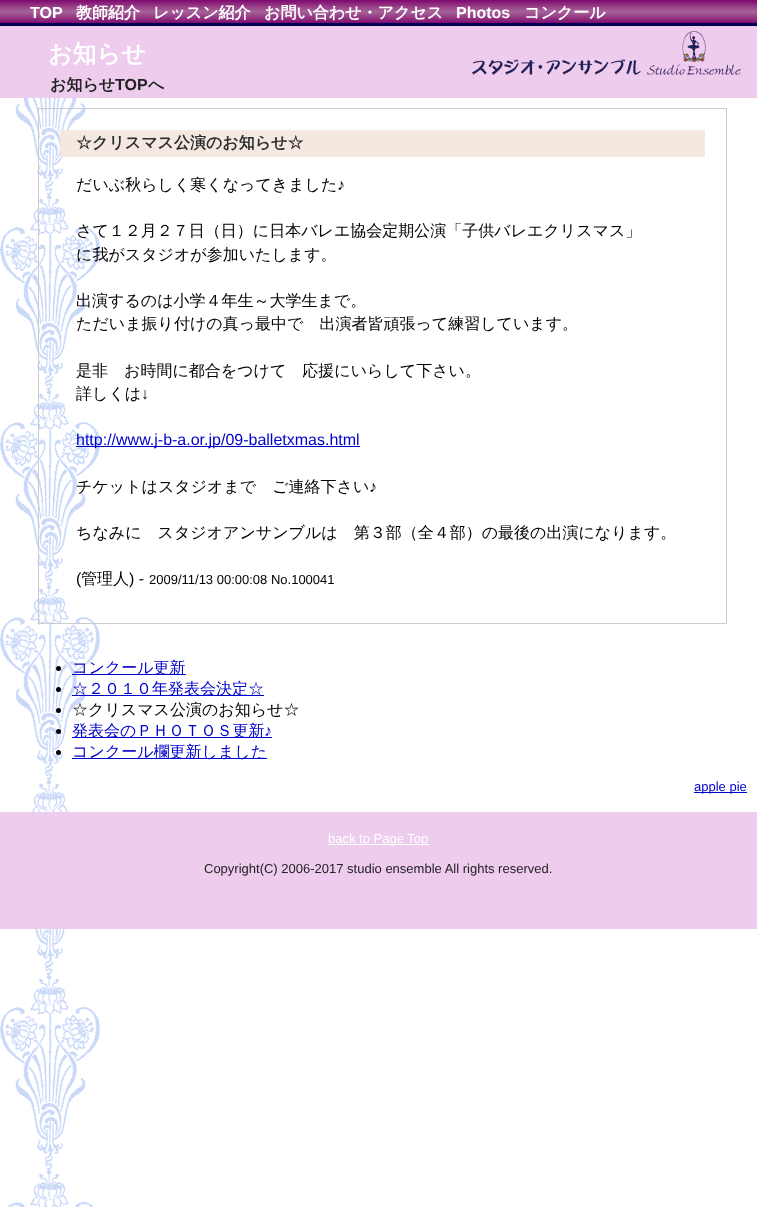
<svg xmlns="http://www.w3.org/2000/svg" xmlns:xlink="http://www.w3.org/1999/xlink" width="757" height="1207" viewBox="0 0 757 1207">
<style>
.cls-1{font:bold 16px Liberation Sans;fill:#ffffff}
.cls-2{font:bold 16px WenQuanYi Zen Hei;fill:#ffffff}
.cls-3{font:bold 24px WenQuanYi Zen Hei;fill:#ffffff}
.cls-4{font:bold 16px WenQuanYi Zen Hei;fill:#222222}
.cls-5{font:bold 16px Liberation Sans;fill:#222222}
.cls-6{font:bold 16px WenQuanYi Zen Hei;fill:#2a2c2d}
.cls-7{font:500 16px WenQuanYi Zen Hei;fill:#000000}
.cls-8{font:16px Liberation Sans;fill:#000000}
.cls-9{font:16px Liberation Sans;fill:#0000cc}
.cls-10{font:13px Liberation Sans;fill:#000000}
.cls-11{font:500 16px WenQuanYi Zen Hei;fill:#0000cc}
.cls-12{font:13px Liberation Sans;fill:#0000cc}
.cls-13{font:13px Liberation Sans;fill:#ffffff}
.cls-14{font:13px Liberation Sans;fill:#222222}
</style>
<rect width="100%" height="100%" fill="#ffffff"/>
<image xlink:href="image0.png" x="0" y="98" width="100" height="1109"/>
<rect fill="#eeccee" x="0" y="26" width="757" height="72"/>
<rect fill="#000055" x="0" y="23" width="757" height="3"/>
<image xlink:href="image1.png" x="0" y="0" width="757" height="23"/>
<image xlink:href="image2.png" x="472" y="31" width="269" height="44"/>
<rect fill="none" stroke="#cccccc" x="38.5" y="108.5" width="688" height="515"/>
<rect fill="#f4e8e0" x="60" y="130" width="645" height="27"/>
<rect fill="#0000cc" x="76" y="446" width="284" height="1"/>
<circle fill="#000000" cx="58.5" cy="668.5" r="2.5"/>
<rect fill="#0000cc" x="72" y="674" width="114" height="1"/>
<circle fill="#000000" cx="58.5" cy="689.5" r="2.5"/>
<rect fill="#0000cc" x="72" y="695" width="192" height="1"/>
<circle fill="#000000" cx="58.5" cy="710.5" r="2.5"/>
<circle fill="#000000" cx="58.5" cy="731.5" r="2.5"/>
<rect fill="#0000cc" x="72" y="737" width="200" height="1"/>
<circle fill="#000000" cx="58.5" cy="752.5" r="2.5"/>
<rect fill="#0000cc" x="72" y="758" width="195" height="1"/>
<rect fill="#0000cc" x="694" y="792" width="53" height="1"/>
<rect fill="#eeccee" x="0" y="812" width="757" height="117"/>
<rect fill="#ffffff" x="328" y="844" width="101" height="1"/>
<text class="cls-1" x="30" y="18">TOP</text>
<text class="cls-2" x="76" y="18">教師紹介</text>
<text class="cls-2" x="153" y="18">レッスン紹介</text>
<text class="cls-2" x="264" y="18">お問い合わせ・アクセス</text>
<text class="cls-1" x="456" y="18">Photos</text>
<text class="cls-2" x="524" y="18">コンクール</text>
<text class="cls-3" x="48" y="62">お知らせ</text>
<text class="cls-4" x="50" y="90">お知らせ</text>
<text class="cls-5" x="115" y="90">TOP</text>
<text class="cls-4" x="148" y="90">へ</text>
<text class="cls-6" x="76" y="148">☆クリスマス公演のお知らせ☆</text>
<text class="cls-7" x="76" y="190">だいぶ秋らしく寒くなってきました</text>
<text class="cls-8" x="337" y="190">♪</text>
<text class="cls-7"><tspan x="76" y="236">さて１２月２７日（日）に日本バレエ協会定期公演「子供バレエクリスマス」</tspan><tspan x="76" y="260">に我がスタジオが参加いたします。</tspan></text>
<text class="cls-7"><tspan x="76" y="306">出演するのは小学４年生～大学生まで。</tspan><tspan x="76" y="329">ただいま振り付けの真っ最中で　出演者皆頑張って練習しています。</tspan></text>
<text class="cls-7"><tspan x="76" y="376">是非　お時間に都合をつけて　応援にいらして下さい。</tspan><tspan x="76" y="399">詳しくは</tspan></text>
<text class="cls-8" x="141" y="399">↓</text>
<text class="cls-9" x="76" y="445">http://www.j-b-a.or.jp/09-balletxmas.html</text>
<text class="cls-7" x="76" y="492">チケットはスタジオまで　ご連絡下さい</text>
<text class="cls-8" x="369" y="492">♪</text>
<text class="cls-7" x="76" y="538">ちなみに　スタジオアンサンブルは　第３部（全４部）の最後の出演になります。</text>
<text class="cls-8" x="76" y="584">(</text>
<text class="cls-7" x="81" y="584">管理人</text>
<text class="cls-8" x="129" y="584">) -</text>
<text class="cls-10" x="149" y="584">2009/11/13 00:00:08 No.100041</text>
<text class="cls-11"><tspan x="72" y="673">コンクール更新</tspan><tspan x="72" y="694">☆２０１０年発表会決定☆</tspan></text>
<text class="cls-7" x="72" y="715">☆クリスマス公演のお知らせ☆</text>
<text class="cls-11" x="72" y="736">発表会のＰＨＯＴＯＳ更新</text>
<text class="cls-9" x="264" y="736">♪</text>
<text class="cls-11" x="72" y="757">コンクール欄更新しました</text>
<text class="cls-12" x="694" y="791">apple pie</text>
<text class="cls-13" x="328" y="843">back to Page Top</text>
<text class="cls-14" x="204" y="873">Copyright(C) 2006-2017 studio ensemble All rights reserved.</text>
</svg>
